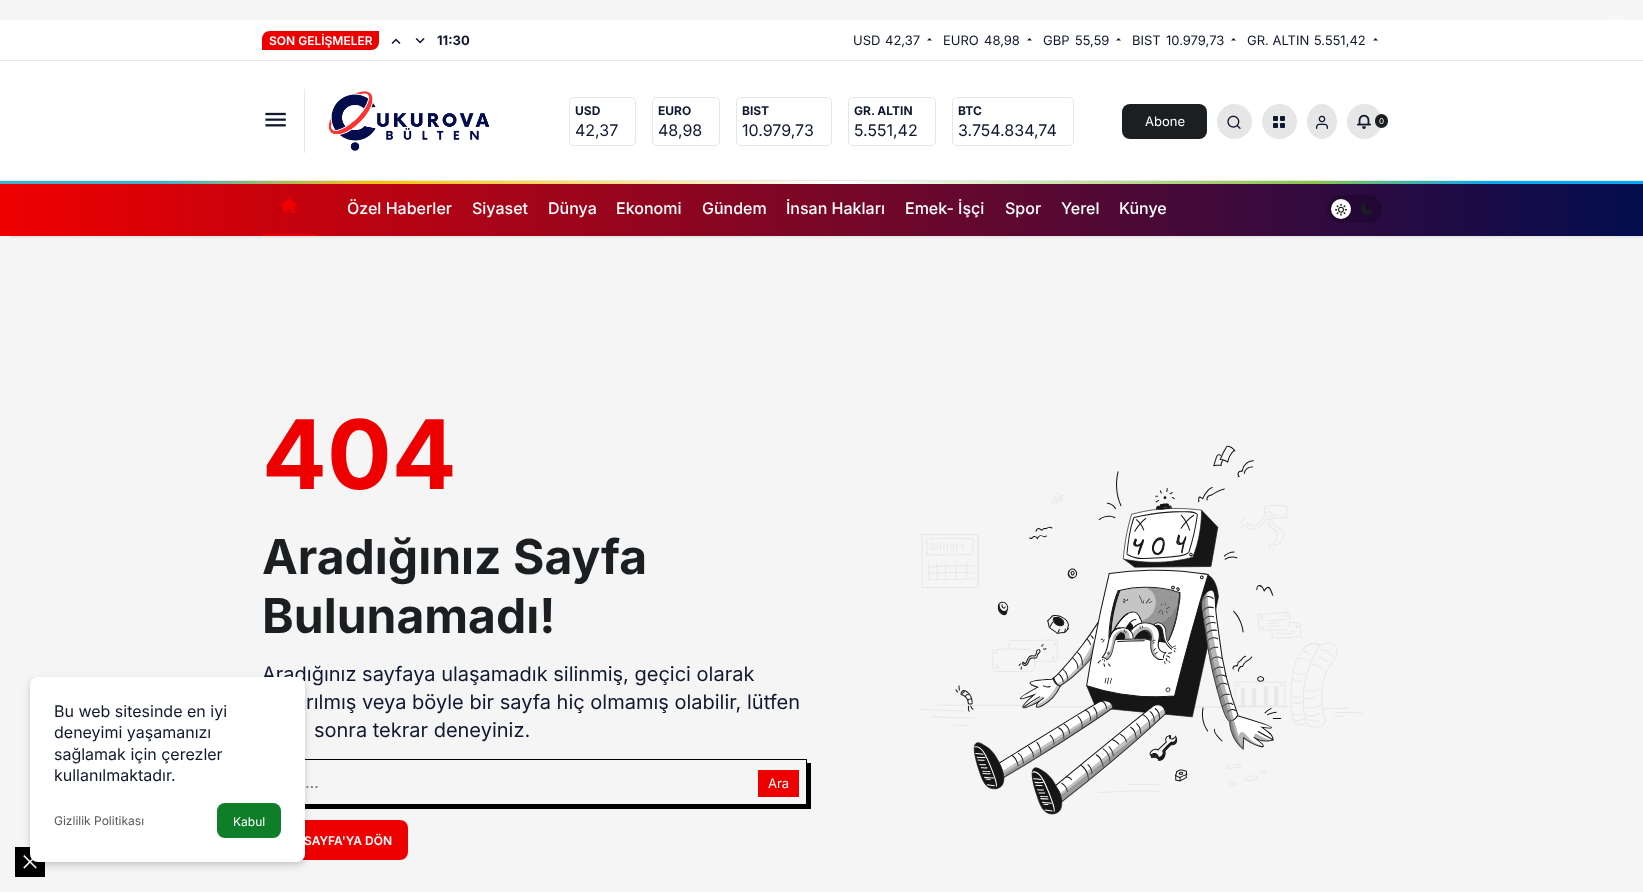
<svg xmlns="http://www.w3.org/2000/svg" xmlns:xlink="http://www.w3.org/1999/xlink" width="1643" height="892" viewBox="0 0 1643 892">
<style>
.cls-1{font:600 12px Inter;fill:#ffffff}
.cls-2{font:bold 13px Inter;fill:#10182f}
.cls-3{font:13px Inter;fill:#10182f}
.cls-4{font:bold 12px Inter;fill:#10182f}
.cls-5{font:16px Inter;fill:#10182f}
.cls-6{font:13px Inter;fill:#ffffff}
.cls-7{font:8px Inter;fill:#ffffff}
.cls-8{font:500 16px Inter;fill:#ffffff}
.cls-9{font:bold 96px Inter;fill:#ef0000}
.cls-10{font:bold 48px Inter;fill:#1c1f22}
.cls-11{font:20px Inter;fill:#10182f}
.cls-12{font:12px Inter;fill:#555759}
.cls-13{font:12px Inter;fill:#ffffff}
.cls-14{font:16px Inter;fill:#757575}
</style>
<defs>
<linearGradient id="g1" gradientUnits="userSpaceOnUse" x1="0" y1="183" x2="1643" y2="182"><stop offset="0.1" stop-color="#42b1ca"/><stop offset="0.23" stop-color="#ffc107"/><stop offset="0.51" stop-color="#ffffff"/><stop offset="0.8" stop-color="#8bc34a"/><stop offset="0.91" stop-color="#03a9f4"/></linearGradient>
<linearGradient id="g2" gradientUnits="userSpaceOnUse" x1="0" y1="209" x2="1643" y2="208"><stop offset="0" stop-color="#ef0000"/><stop offset="1" stop-color="#030d4e"/></linearGradient>
</defs>
<rect width="100%" height="100%" fill="#f5f5f5"/>
<circle fill="#f7f7fc" cx="1615.5" cy="28.5" r="12.5"/>
<rect fill="#000000" fill-opacity="0.1" filter="blur(1px)" x="10" y="182" width="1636" height="55"/>
<rect fill="#ffffff" x="0" y="20" width="1643" height="160"/>
<rect fill="#e6e7e9" x="0" y="180" width="1643" height="1"/>
<path fill="#ef0000" d="M270 31H379V42C379 46.5 375.5 50 371 50H262V39C262 34.5 265.5 31 270 31Z"/>
<image xlink:href="image0.png" x="391" y="38" width="10" height="6"/>
<image xlink:href="image1.png" x="415" y="38" width="10" height="6"/>
<path fill="#10182f" d="M927 40.5L929.5 38L932 40.5Z"/>
<path fill="#10182f" d="M1027 40.5L1029.5 38L1032 40.5Z"/>
<path fill="#10182f" d="M1116 40.5L1118.5 38L1121 40.5Z"/>
<path fill="#10182f" d="M1231 40.5L1233.5 38L1236 40.5Z"/>
<path fill="#10182f" d="M1373 40.5L1375.5 38L1378 40.5Z"/>
<rect fill="#e6e7e9" x="0" y="60" width="1643" height="1"/>
<image xlink:href="image2.png" x="265" y="112" width="21" height="15"/>
<rect fill="#e6e7e9" x="304" y="89" width="1" height="64"/>
<image xlink:href="image3.png" x="328" y="91" width="162" height="60"/>
<rect fill="none" stroke="#e6e7e9" x="569.5" y="97.5" width="66" height="48" rx="4.5"/>
<rect fill="none" stroke="#e6e7e9" x="652.5" y="97.5" width="67" height="48" rx="4.5"/>
<rect fill="none" stroke="#e6e7e9" x="736.5" y="97.5" width="95" height="48" rx="4.5"/>
<rect fill="none" stroke="#e6e7e9" x="848.5" y="97.5" width="87" height="48" rx="4.5"/>
<rect fill="none" stroke="#e6e7e9" x="952.5" y="97.5" width="121" height="48" rx="4.5"/>
<rect fill="#1c1f22" x="1122" y="104" width="85" height="35" rx="8"/>
<circle fill="#e6e6e6" cx="1234.5" cy="121.5" r="17.5"/>
<image xlink:href="image4.png" x="1227" y="115" width="14" height="14"/>
<circle fill="#e6e6e6" cx="1279.5" cy="121.5" r="17.5"/>
<image xlink:href="image5.png" x="1273" y="116" width="12" height="12"/>
<ellipse fill="#e6e6e6" cx="1322" cy="121.5" rx="15" ry="17.5"/>
<image xlink:href="image6.png" x="1316" y="115" width="12" height="14"/>
<circle fill="#e6e6e6" cx="1364.5" cy="121.5" r="17.5"/>
<image xlink:href="image7.png" x="1356" y="114" width="16" height="15"/>
<rect fill="#1c1f22" x="1375" y="114" width="13" height="14" rx="6.5"/>
<rect fill="url(#g1)" x="0" y="181" width="1643" height="3"/>
<rect fill="url(#g2)" x="0" y="184" width="1643" height="52"/>
<image xlink:href="image8.png" x="280" y="198" width="18" height="16"/>
<rect fill="#ef0000" x="262" y="234" width="55" height="2"/>
<rect fill="#000000" fill-opacity="0.2" x="1327" y="195" width="55" height="28" rx="14"/>
<circle fill="#ffffff" cx="1341" cy="209" r="10"/>
<image xlink:href="image9.png" x="1335" y="203" width="12" height="13"/>
<image xlink:href="image10.png" x="1361" y="203" width="12" height="12"/>
<path fill="#000000" d="M266 805V809H811V763H807V805Z"/>
<rect fill="none" stroke="#000000" x="262.5" y="759.5" width="544" height="45"/>
<rect fill="#ef0000" x="262" y="820" width="146" height="40" rx="8"/>
<rect fill="#000000" x="15" y="847" width="30" height="30"/>
<image xlink:href="image12.png" x="23" y="855" width="14" height="14"/>
<rect fill="#000000" fill-opacity="0.08" filter="blur(2px)" x="30" y="679" width="275" height="185" rx="8"/>
<rect fill="#000000" fill-opacity="0.12" filter="blur(4px)" x="30" y="681" width="275" height="185" rx="8"/>
<rect fill="#ef0000" x="758" y="770" width="41" height="27"/>
<image xlink:href="image11.png" x="920" y="445" width="443" height="370"/>
<text class="cls-1" x="269" y="45">SON GELİŞMELER</text>
<text class="cls-2" x="437" y="45">11:30</text>
<text class="cls-3" x="853" y="45">USD</text>
<text class="cls-3" x="885" y="45">42,37</text>
<text class="cls-3" x="943" y="45">EURO</text>
<text class="cls-3" x="984" y="45">48,98</text>
<text class="cls-3" x="1043" y="45">GBP</text>
<text class="cls-3" x="1075" y="45">55,59</text>
<text class="cls-3" x="1132" y="45">BIST</text>
<text class="cls-3" x="1166" y="45">10.979,73</text>
<text class="cls-3" x="1247" y="45">GR. ALTIN</text>
<text class="cls-3" x="1314" y="45">5.551,42</text>
<text class="cls-4" x="575" y="115">USD</text>
<text class="cls-5" x="575" y="136">42,37</text>
<text class="cls-4" x="658" y="115">EURO</text>
<text class="cls-5" x="658" y="136">48,98</text>
<text class="cls-4" x="742" y="115">BIST</text>
<text class="cls-5" x="742" y="136">10.979,73</text>
<text class="cls-4" x="854" y="115">GR. ALTIN</text>
<text class="cls-5" x="854" y="136">5.551,42</text>
<text class="cls-4" x="958" y="115">BTC</text>
<text class="cls-5" x="958" y="136">3.754.834,74</text>
<text class="cls-6" x="1145" y="126">Abone</text>
<text class="cls-7" x="1379" y="124">0</text>
<text class="cls-8" x="347" y="214">Özel Haberler</text>
<text class="cls-8" x="472" y="214">Siyaset</text>
<text class="cls-8" x="548" y="214">Dünya</text>
<text class="cls-8" x="616" y="214">Ekonomi</text>
<text class="cls-8" x="702" y="214">Gündem</text>
<text class="cls-8" x="786" y="214">İnsan Hakları</text>
<text class="cls-8" x="905" y="214">Emek- İşçi</text>
<text class="cls-8" x="1005" y="214">Spor</text>
<text class="cls-8" x="1061" y="214">Yerel</text>
<text class="cls-8" x="1119" y="214">Künye</text>
<text class="cls-9" x="262" y="489">404</text>
<text class="cls-10"><tspan x="262" y="574">Aradığınız Sayfa</tspan><tspan x="262" y="633">Bulunamadı!</tspan></text>
<text class="cls-11" x="262" y="681">Aradığınız sayfaya ulaşamadık silinmiş, geçici olarak</text>
<rect fill="#ffffff" x="30" y="677" width="275" height="185" rx="8"/>
<text class="cls-12" x="54" y="825">Gizlilik Politikası</text>
<rect fill="#0f7e29" x="217" y="803" width="64" height="35" rx="8"/>
<text class="cls-13" x="233" y="826">Kabul</text>
<text class="cls-5" x="54" y="781">kullanılmaktadır.</text>
<text class="cls-5" x="54" y="760">sağlamak için çerezler</text>
<text class="cls-5" x="54" y="738">deneyimi yaşamanızı</text>
<text class="cls-5" x="54" y="717">Bu web sitesinde en iyi</text>
<text class="cls-11" x="306" y="709">rılmış veya böyle bir sayfa hiç olmamış olabilir, lütfen</text>
<text class="cls-11" x="314" y="737">sonra tekrar deneyiniz.</text>
<text class="cls-14" x="305" y="788">…</text>
<text class="cls-6" x="768" y="788">Ara</text>
<text class="cls-1" x="304" y="845">SAYFA'YA DÖN</text>
</svg>
